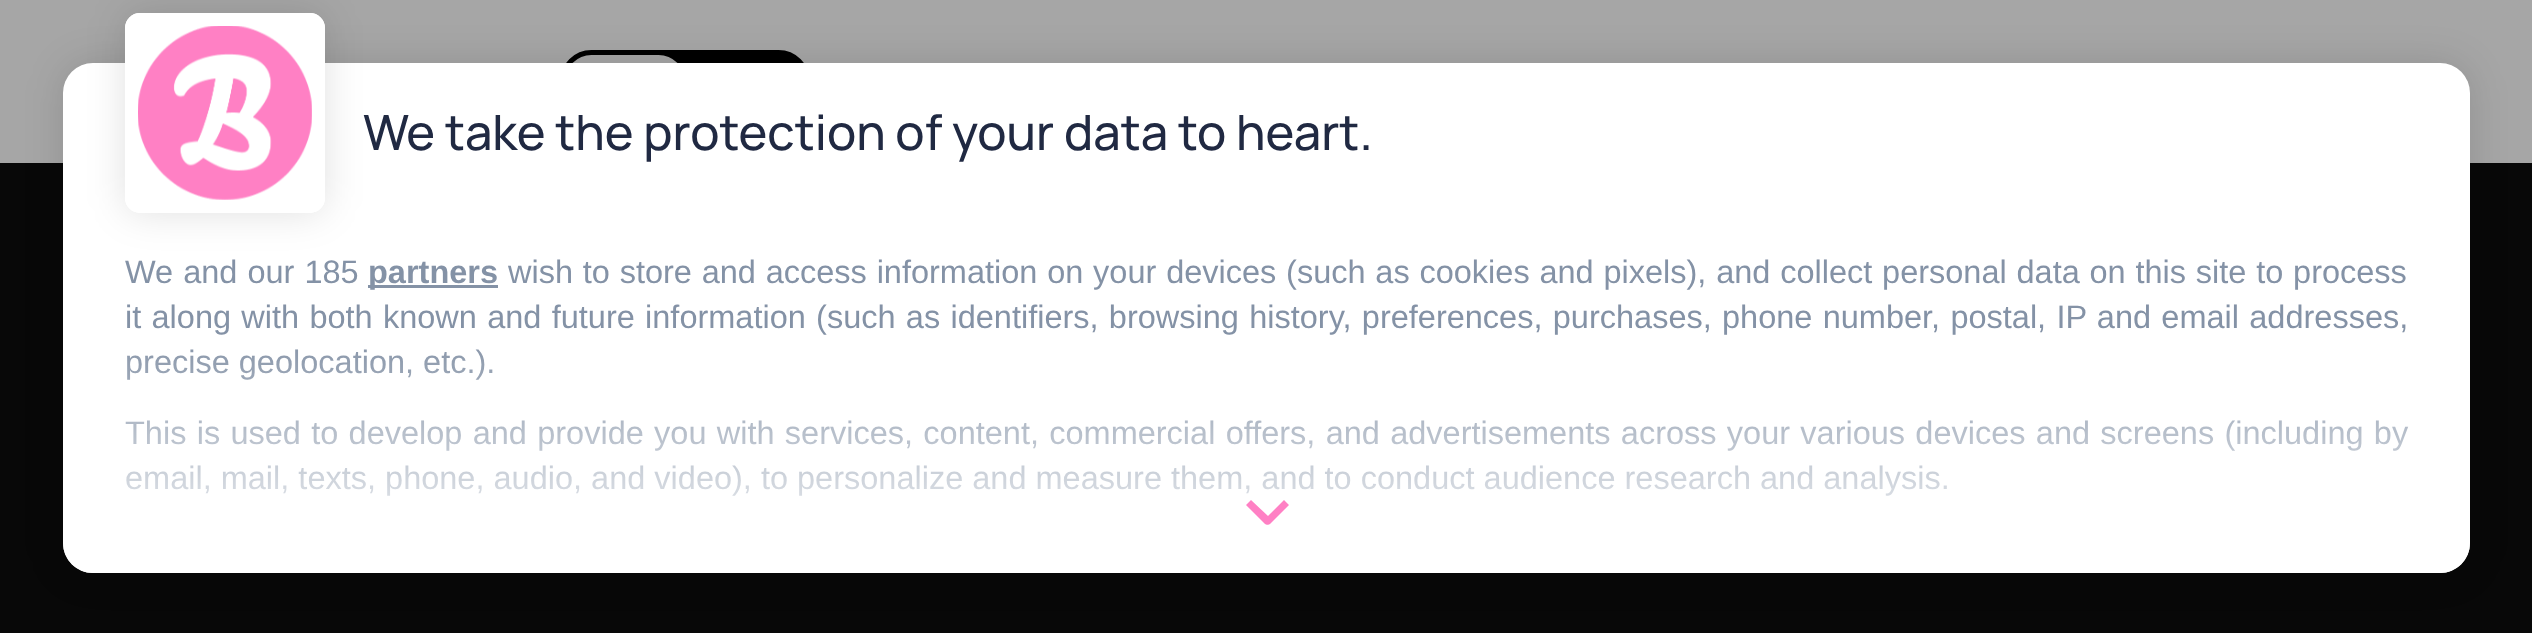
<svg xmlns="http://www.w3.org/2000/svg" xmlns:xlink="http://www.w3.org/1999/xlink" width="2532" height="633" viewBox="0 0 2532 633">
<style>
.cls-1{font:500 48.75px Manrope;fill:#202942}
.cls-2{font:32.5px Liberation Sans;fill:#8492a6}
.cls-3{font:bold 32.5px Liberation Sans;fill:#8492a6}
</style>
<defs>
<linearGradient id="g1" gradientUnits="userSpaceOnUse" x1="1266" y1="573" x2="1266" y2="333"><stop offset="0" stop-color="#ffffff"/><stop offset="1" stop-color="#ffffff" stop-opacity="0"/></linearGradient>
</defs>
<rect width="100%" height="100%" fill="#080808"/>
<rect fill="#a6a6a6" x="0" y="0" width="2532" height="163"/>
<rect fill="#000000" stroke="#000000" stroke-width="5" x="562.5" y="52.5" width="245" height="58" rx="29"/>
<rect fill="#a6a6a6" x="565" y="55" width="120" height="53" rx="26.5"/>
<rect fill="#000000" fill-opacity="0.12" filter="blur(19px)" x="63" y="63" width="2407" height="510" rx="30"/>
<rect fill="#ffffff" x="63" y="63" width="2407" height="510" rx="30"/>
<rect fill="#000000" fill-opacity="0.12" filter="blur(19px)" x="125" y="13" width="200" height="200" rx="15"/>
<rect fill="#ffffff" x="125" y="13" width="200" height="200" rx="15"/>
<image xlink:href="image0.png" x="138" y="26" width="174" height="174"/>
<rect fill="none" stroke="#ffffff" stroke-width="13" x="131.5" y="19.5" width="187" height="187" rx="8.5"/>
<rect fill="#8492a6" x="368" y="285" width="130" height="3"/>
<text class="cls-1" x="363" y="150">We take the protection of your data to heart.</text>
<text class="cls-2" x="125" y="283" word-spacing="1">We and our 185</text>
<text class="cls-3" x="368" y="283">partners</text>
<text class="cls-2" x="508" y="283" word-spacing="0.75">wish to store and access information on your devices (such as cookies and pixels), and collect personal data on this site to process</text>
<text class="cls-2"><tspan x="125" y="328" word-spacing="1.25">it along with both known and future information (such as identifiers, browsing history, preferences, purchases, phone number, postal, IP and email addresses,</tspan><tspan x="125" y="373">precise geolocation, etc.).</tspan></text>
<text class="cls-2"><tspan x="125" y="444" word-spacing="1.25">This is used to develop and provide you with services, content, commercial offers, and advertisements across your various devices and screens (including by</tspan><tspan x="125" y="489">email, mail, texts, phone, audio, and video), to personalize and measure them, and to conduct audience research and analysis.</tspan></text>
<path fill="url(#g1)" d="M63 333H2470V543C2470 559.5 2456.5 573 2440 573H93C76.5 573 63 559.5 63 543Z"/>
<path fill="#ff80c4" d="M1284 500L1289 505L1270 524C1269 525 1266 525 1265 524L1246 505L1251 500L1268 516Z"/>
</svg>
